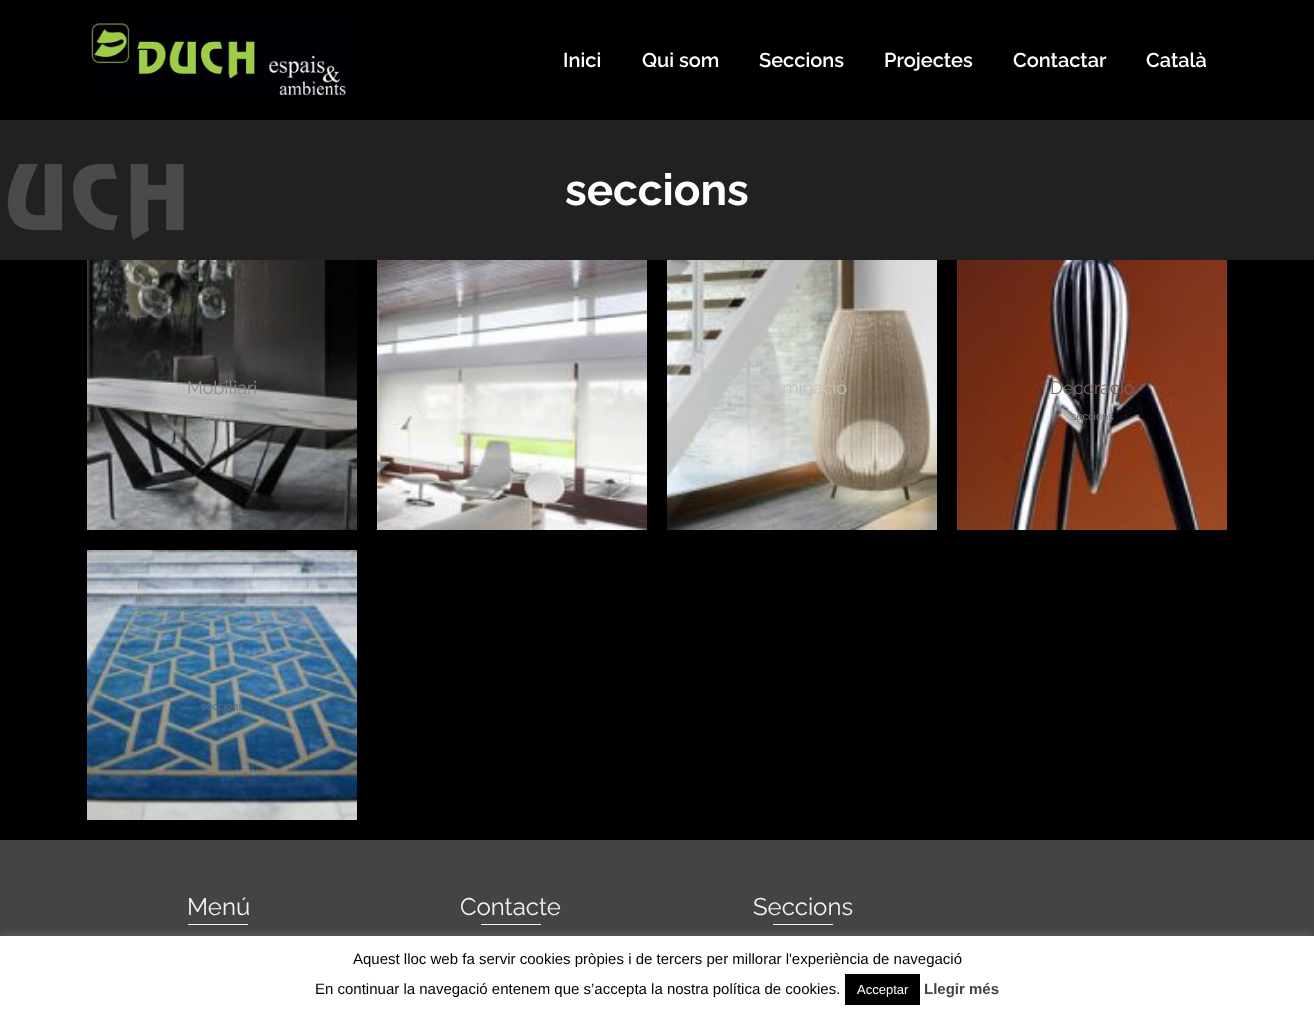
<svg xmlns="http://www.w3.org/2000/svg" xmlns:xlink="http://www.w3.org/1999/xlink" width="1314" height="1017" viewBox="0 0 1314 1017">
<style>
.cls-1{font:600 20px Raleway;fill:#ffffff}
.cls-2{font:bold 44px Raleway;fill:#ffffff}
.cls-3{font:18px Raleway;fill:#8d8c8c}
.cls-4{font:11px Liberation Sans;fill:#9a9a9a}
.cls-5{font:18px Raleway;fill:#c4c2b8}
.cls-6{font:18px Raleway;fill:#756665}
.cls-7{font:11px Liberation Sans;fill:#717075}
.cls-8{font:11px Liberation Sans;fill:#4b6c8b}
.cls-9{font:24px Raleway;fill:#f2f2f2}
.cls-10{font:15px Liberation Sans;fill:#000000}
.cls-11{font:13px Liberation Sans;fill:#ffffff}
.cls-12{font:bold 15px Liberation Sans;fill:#444444}
</style>
<rect width="100%" height="100%" fill="#000000"/>
<image xlink:href="image0.png" x="87" y="19" width="263" height="82"/>
<image xlink:href="image1.png" x="0" y="120" width="1314" height="140"/>
<image xlink:href="image2.png" x="87" y="260" width="270" height="270"/>
<image xlink:href="image3.png" x="377" y="260" width="270" height="270"/>
<image xlink:href="image4.png" x="667" y="260" width="270" height="270"/>
<image xlink:href="image5.png" x="957" y="260" width="270" height="270"/>
<image xlink:href="image6.png" x="87" y="550" width="270" height="270"/>
<rect fill="#444444" x="0" y="840" width="1314" height="96"/>
<rect fill="#f2f2f2" x="188" y="924" width="60" height="1"/>
<rect fill="#f2f2f2" x="481" y="924" width="60" height="1"/>
<rect fill="#f2f2f2" x="773" y="924" width="60" height="1"/>
<rect fill="#acabab" fill-opacity="0.3" filter="blur(5px)" x="0" y="935" width="1314" height="81"/>
<rect fill="#ffffff" x="0" y="936" width="1314" height="81"/>
<rect fill="#000000" x="845" y="974" width="75" height="31"/>
<text class="cls-1" x="563" y="67">Inici</text>
<text class="cls-1" x="642" y="67">Qui som</text>
<text class="cls-1" x="759" y="67">Seccions</text>
<text class="cls-1" x="884" y="67">Projectes</text>
<text class="cls-1" x="1013" y="67">Contactar</text>
<text class="cls-1" x="1146" y="67">Català</text>
<text class="cls-2" x="565" y="205">seccions</text>
<text class="cls-3" x="187" y="394">Mobiliari</text>
<text class="cls-4" x="201" y="420">seccions</text>
<text class="cls-5" x="782" y="394">minació</text>
<text class="cls-6" x="1050" y="394">Decoració</text>
<text class="cls-7" x="1071" y="420">seccions</text>
<text class="cls-8" x="201" y="710">seccions</text>
<text class="cls-9" x="187" y="915">Menú</text>
<text class="cls-9" x="460" y="915">Contacte</text>
<text class="cls-9" x="753" y="915">Seccions</text>
<text class="cls-10" x="353" y="964">Aquest lloc web fa servir cookies pròpies i de tercers per millorar l'experiència de navegació</text>
<text class="cls-10" x="315" y="994">En continuar la navegació entenem que s’accepta la nostra política de cookies.</text>
<text class="cls-11" x="857" y="994">Acceptar</text>
<text class="cls-12" x="924" y="994">Llegir més</text>
</svg>
